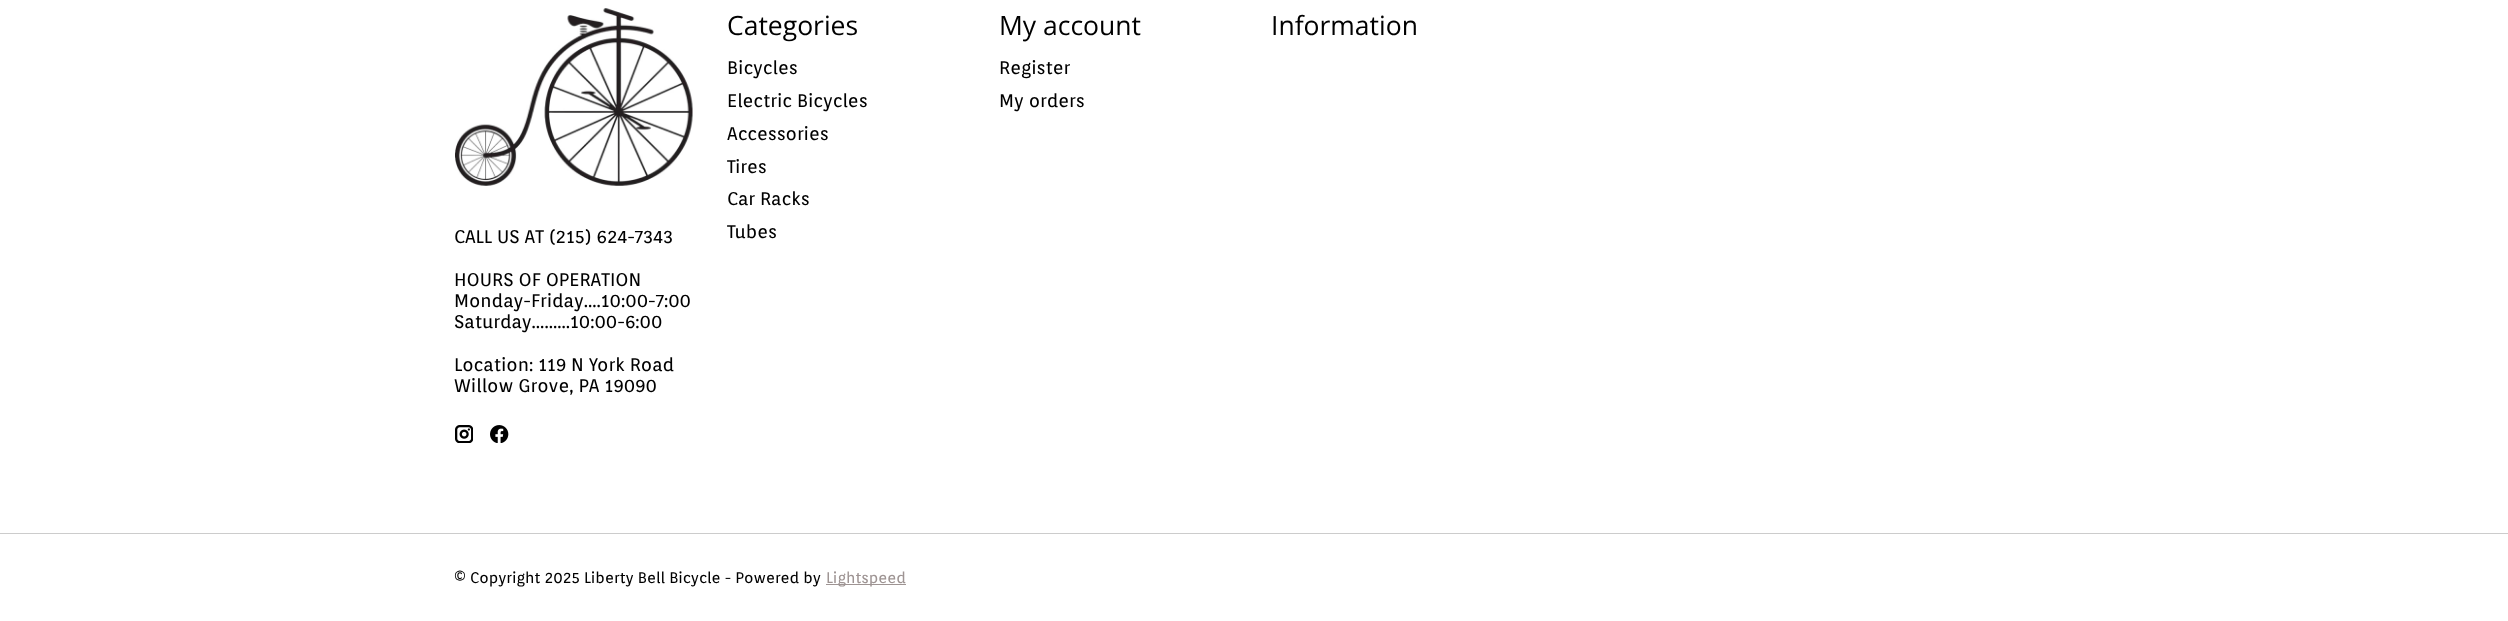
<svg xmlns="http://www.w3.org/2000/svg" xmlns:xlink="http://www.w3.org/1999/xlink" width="2508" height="621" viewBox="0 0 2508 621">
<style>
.cls-1{font:26.5px Open Sans;fill:#000000}
.cls-2{font:18.3px Orienta;fill:#000000}
.cls-3{font:15.25px Orienta;fill:#000000}
.cls-4{font:15.25px Orienta;fill:#9e9493}
</style>
<rect width="100%" height="100%" fill="#ffffff"/>
<image xlink:href="image0.png" x="455" y="8" width="238" height="178"/>
<image xlink:href="image1.png" x="455" y="425" width="18" height="18"/>
<image xlink:href="image2.png" x="490" y="425" width="19" height="18"/>
<rect fill="#cccccc" x="0" y="533" width="2508" height="1"/>
<rect fill="#9e9493" x="826" y="584" width="80" height="1"/>
<text class="cls-1" x="727" y="35">Categories</text>
<text class="cls-2"><tspan x="727" y="74">Bicycles</tspan><tspan x="727" y="107">Electric Bicycles</tspan><tspan x="727" y="140">Accessories</tspan><tspan x="727" y="173">Tires</tspan><tspan x="727" y="205">Car Racks</tspan><tspan x="727" y="238">Tubes</tspan></text>
<text class="cls-1" x="999" y="35">My account</text>
<text class="cls-2"><tspan x="999" y="74">Register</tspan><tspan x="999" y="107">My orders</tspan></text>
<text class="cls-1" x="1271" y="35">Information</text>
<text class="cls-2" x="454" y="243">CALL US AT (215) 624-7343</text>
<text class="cls-2"><tspan x="454" y="286">HOURS OF OPERATION</tspan><tspan x="454" y="307">Monday-Friday….10:00-7:00</tspan><tspan x="454" y="328">Saturday………10:00-6:00</tspan></text>
<text class="cls-2"><tspan x="454" y="371">Location: 119 N York Road</tspan><tspan x="454" y="392">Willow Grove, PA 19090</tspan></text>
<text class="cls-3" x="454" y="583">© Copyright 2025 Liberty Bell Bicycle - Powered by</text>
<text class="cls-4" x="826" y="583">Lightspeed</text>
</svg>
